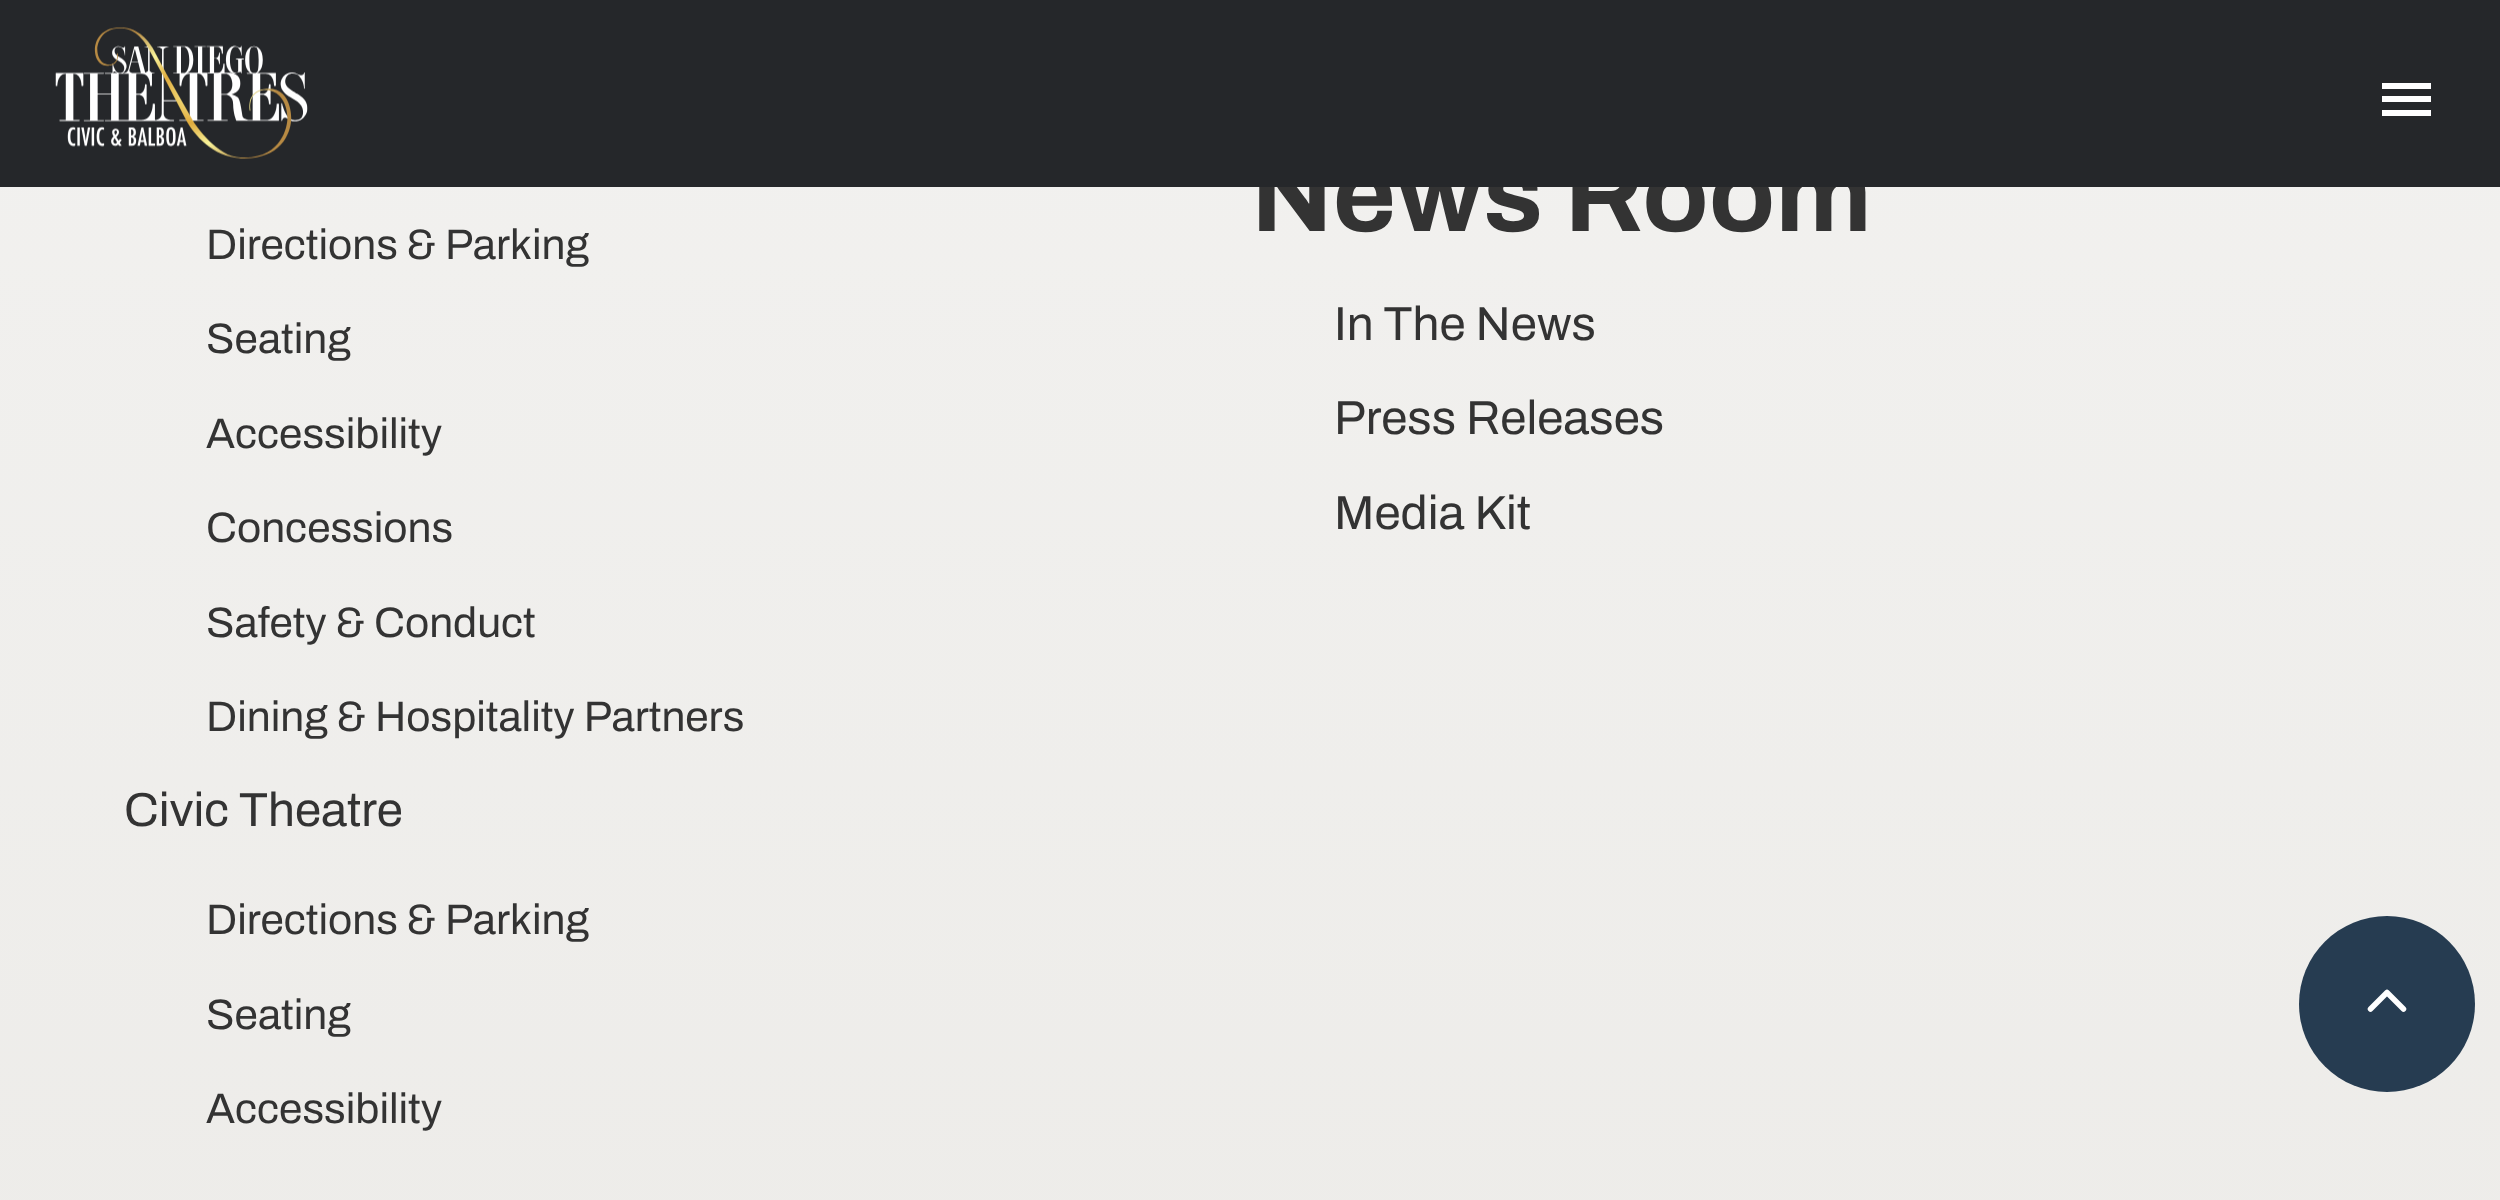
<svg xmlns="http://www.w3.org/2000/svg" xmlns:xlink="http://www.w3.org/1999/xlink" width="2500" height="1200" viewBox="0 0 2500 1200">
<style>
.cls-1{font:42.5px Archivo;fill:#333333}
.cls-2{font:47.75px Archivo;fill:#333333}
.cls-3{font:bold 108.5px Archivo;fill:#333333}
</style>
<defs>
<linearGradient id="g1" gradientUnits="userSpaceOnUse" x1="1251" y1="-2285" x2="1251" y2="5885"><stop offset="0" stop-color="#fafafa"/><stop offset="0.75" stop-color="#e4e2dd"/></linearGradient>
</defs>
<rect width="100%" height="100%" fill="#ffffff"/>
<rect fill="url(#g1)" x="0" y="187" width="2500" height="1013"/>
<circle fill="#263c51" cx="2387" cy="1004" r="88"/>
<path fill="none" stroke="#ffffff" stroke-width="5.5" stroke-linecap="round" stroke-linejoin="round" d="M2403.5 1009L2387 992.5L2370.5 1009"/>
<text class="cls-1" x="206" y="259">Directions &amp; Parking</text>
<text class="cls-1" x="206" y="353">Seating</text>
<text class="cls-1" x="206" y="448">Accessibility</text>
<text class="cls-1" x="206" y="542">Concessions</text>
<text class="cls-1" x="206" y="637">Safety &amp; Conduct</text>
<text class="cls-1" x="206" y="731">Dining &amp; Hospitality Partners</text>
<text class="cls-2" x="124" y="826">Civic Theatre</text>
<text class="cls-1" x="206" y="934">Directions &amp; Parking</text>
<text class="cls-1" x="206" y="1029">Seating</text>
<text class="cls-1" x="206" y="1123">Accessibility</text>
<text class="cls-3" x="1251" y="231">News Room</text>
<rect fill="#25272a" x="0" y="0" width="2500" height="187"/>
<rect fill="#ffffff" x="2382" y="110" width="49" height="6"/>
<rect fill="#ffffff" x="2382" y="96" width="49" height="6"/>
<rect fill="#ffffff" x="2382" y="83" width="49" height="6"/>
<image xlink:href="image0.png" x="55" y="27" width="253" height="132"/>
<text class="cls-2"><tspan x="1334" y="340">In The News</tspan><tspan x="1334" y="434">Press Releases</tspan><tspan x="1334" y="529">Media Kit</tspan></text>
</svg>
